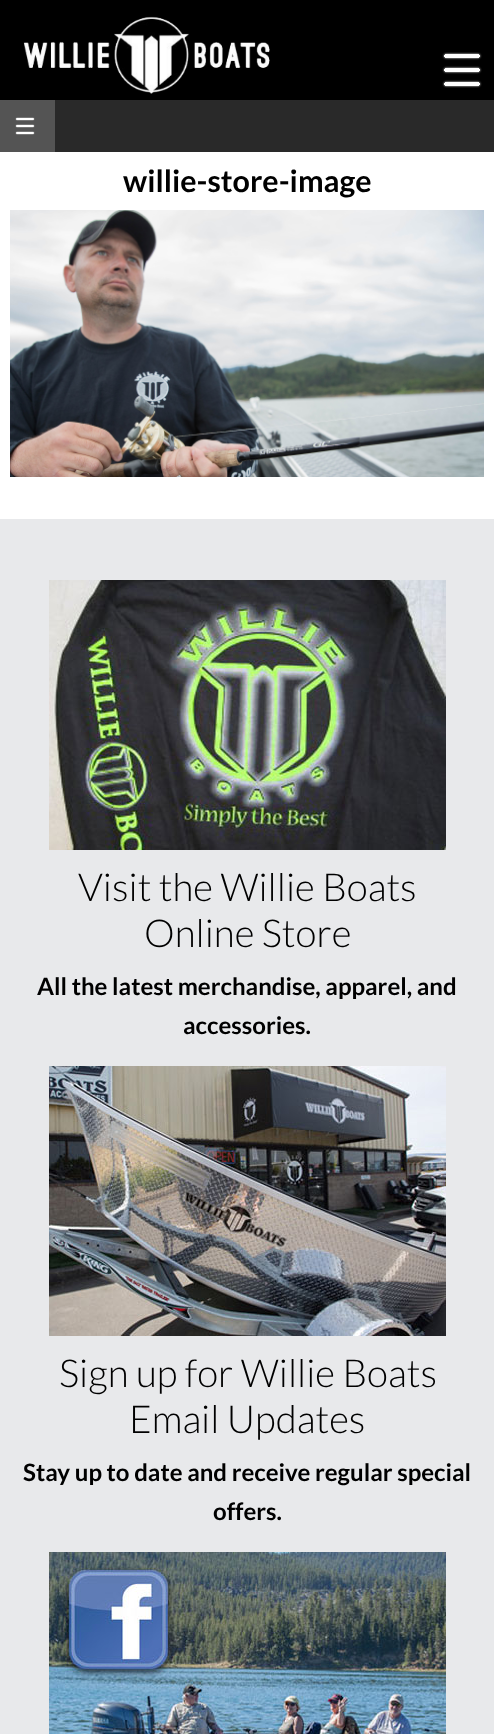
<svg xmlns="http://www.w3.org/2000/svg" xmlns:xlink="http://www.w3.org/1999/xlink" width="494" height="1734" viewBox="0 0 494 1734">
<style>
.cls-1{font:bold 30.5px Lato;fill:#000000}
.cls-2{font:300 38.5px Lato;fill:#000000}
.cls-3{font:bold 24px Lato;fill:#000000}
</style>
<rect width="100%" height="100%" fill="#ffffff"/>
<rect fill="#000000" x="0" y="0" width="494" height="100"/>
<image xlink:href="image0.png" x="23" y="16" width="247" height="78"/>
<image xlink:href="image1.png" x="442" y="52" width="40" height="36"/>
<rect fill="#292929" x="55" y="100" width="439" height="52"/>
<rect fill="#545454" x="0" y="100" width="55" height="52"/>
<image xlink:href="image2.png" x="15" y="117" width="20" height="18"/>
<image xlink:href="image3.png" x="10" y="210" width="474" height="267"/>
<rect fill="#e8e9eb" x="0" y="519" width="494" height="1215"/>
<image xlink:href="image4.png" x="49" y="580" width="397" height="270"/>
<image xlink:href="image5.png" x="49" y="1066" width="397" height="270"/>
<image xlink:href="image6.png" x="49" y="1552" width="397" height="182"/>
<text class="cls-1" x="123" y="192">willie-store-image</text>
<text class="cls-2" x="78" y="901">Visit the Willie Boats</text>
<text class="cls-2" x="144" y="947">Online Store</text>
<text class="cls-3" x="37" y="995">All the latest merchandise, apparel, and</text>
<text class="cls-3" x="183" y="1034">accessories.</text>
<text class="cls-2" x="59" y="1387">Sign up for Willie Boats</text>
<text class="cls-2" x="129" y="1433">Email Updates</text>
<text class="cls-3" x="23" y="1481">Stay up to date and receive regular special</text>
<text class="cls-3" x="213" y="1520">offers.</text>
</svg>
